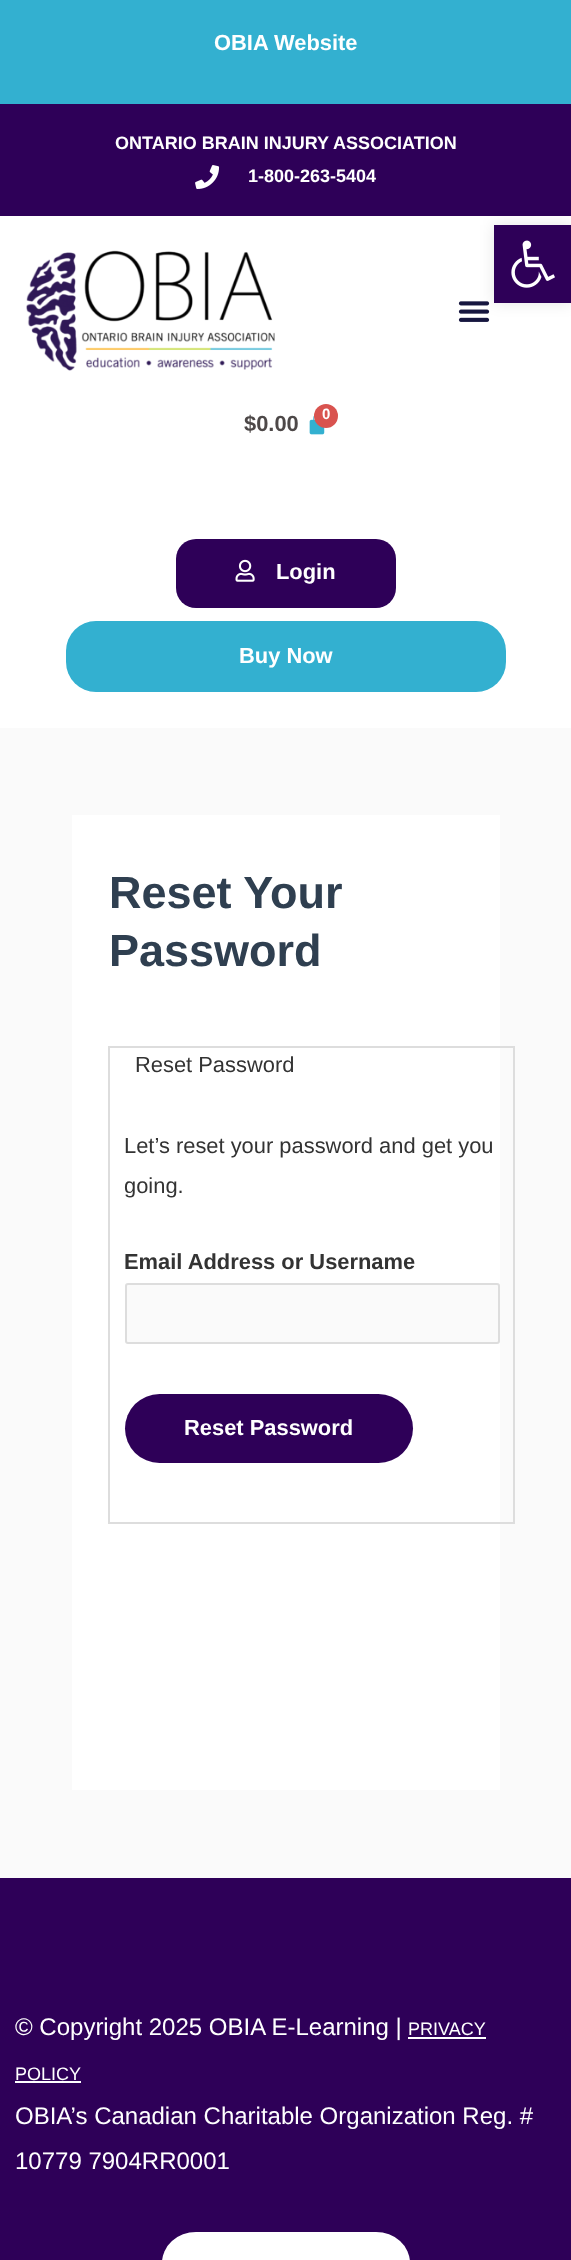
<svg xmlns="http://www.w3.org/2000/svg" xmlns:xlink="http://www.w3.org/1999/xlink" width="571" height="2260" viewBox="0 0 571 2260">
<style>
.cls-1{font:bold 21.9px Liberation Sans;fill:#ffffff}
.cls-2{font:bold 18px Liberation Sans;fill:#ffffff}
.cls-3{font:bold 21.9px Liberation Sans;fill:#4d4848}
.cls-4{font:bold 15px Liberation Sans;fill:#ffffff}
.cls-5{font:bold 45px Liberation Sans;fill:#2f3f50}
.cls-6{font:21.9px Liberation Sans;fill:#333333}
.cls-7{font:bold 21.9px Liberation Sans;fill:#333333}
.cls-8{font:24px Liberation Sans;fill:#ffffff}
.cls-9{font:18px Liberation Sans;fill:#ffffff}
</style>
<rect width="100%" height="100%" fill="#fafafa"/>
<rect fill="#2e0058" x="0" y="104" width="571" height="112"/>
<rect fill="#33b0d0" x="0" y="0" width="571" height="104"/>
<image xlink:href="image0.png" x="195" y="165" width="25" height="24"/>
<rect fill="#ffffff" x="0" y="216" width="571" height="512"/>
<image xlink:href="image1.png" x="26" y="250" width="249" height="121"/>
<image xlink:href="image2.png" x="458" y="301" width="32" height="21"/>
<image xlink:href="image3.png" x="309" y="415" width="16" height="20"/>
<circle fill="#d9534f" cx="326" cy="416" r="12"/>
<rect fill="#2e0058" x="176" y="539" width="220" height="69" rx="20"/>
<image xlink:href="image4.png" x="235" y="559" width="20" height="23"/>
<rect fill="#33b0d0" x="66" y="621" width="440" height="71" rx="30"/>
<rect fill="#ffffff" x="72" y="815" width="428" height="975"/>
<rect fill="none" stroke="#dddddd" stroke-width="2" x="109" y="1047" width="405" height="476"/>
<rect fill="#fafafa" stroke="#dddddd" stroke-width="2" x="126" y="1284" width="373" height="59" rx="2"/>
<rect fill="#2e0058" x="125" y="1394" width="288" height="69" rx="34.5"/>
<rect fill="#2e0058" x="0" y="1878" width="571" height="382"/>
<rect fill="#ffffff" x="408" y="2037" width="78" height="2"/>
<rect fill="#ffffff" x="15" y="2081" width="66" height="2"/>
<rect fill="#ffffff" x="162" y="2232" width="248" height="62" rx="34"/>
<rect fill="#000000" fill-opacity="0.1" filter="blur(7.5px)" x="494" y="225" width="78" height="78"/>
<rect fill="#2e0058" x="494" y="225" width="77" height="78"/>
<image xlink:href="image5.png" x="511" y="240" width="44" height="48"/>
<text class="cls-1" x="214" y="50">OBIA Website</text>
<text class="cls-2" x="115" y="149">ONTARIO BRAIN INJURY ASSOCIATION</text>
<text class="cls-2" x="248" y="182">1-800-263-5404</text>
<text class="cls-3" x="244" y="431">$0.00</text>
<text class="cls-4" x="322" y="419">0</text>
<text class="cls-1" x="276" y="579">Login</text>
<text class="cls-1" x="239" y="663">Buy Now</text>
<text class="cls-5"><tspan x="109" y="908">Reset Your</tspan><tspan x="109" y="966">Password</tspan></text>
<text class="cls-6" x="135" y="1072">Reset Password</text>
<text class="cls-6"><tspan x="124" y="1153">Let’s reset your password and get you</tspan><tspan x="124" y="1193">going.</tspan></text>
<text class="cls-7" x="124" y="1269">Email Address or Username</text>
<text class="cls-1" x="184" y="1435">Reset Password</text>
<text class="cls-8" x="15" y="2035">© Copyright 2025 OBIA E-Learning |</text>
<text class="cls-9" x="408" y="2035">PRIVACY</text>
<text class="cls-9" x="15" y="2080">POLICY</text>
<text class="cls-8"><tspan x="15" y="2124">OBIA’s Canadian Charitable Organization Reg. #</tspan><tspan x="15" y="2169">10779 7904RR0001</tspan></text>
</svg>
